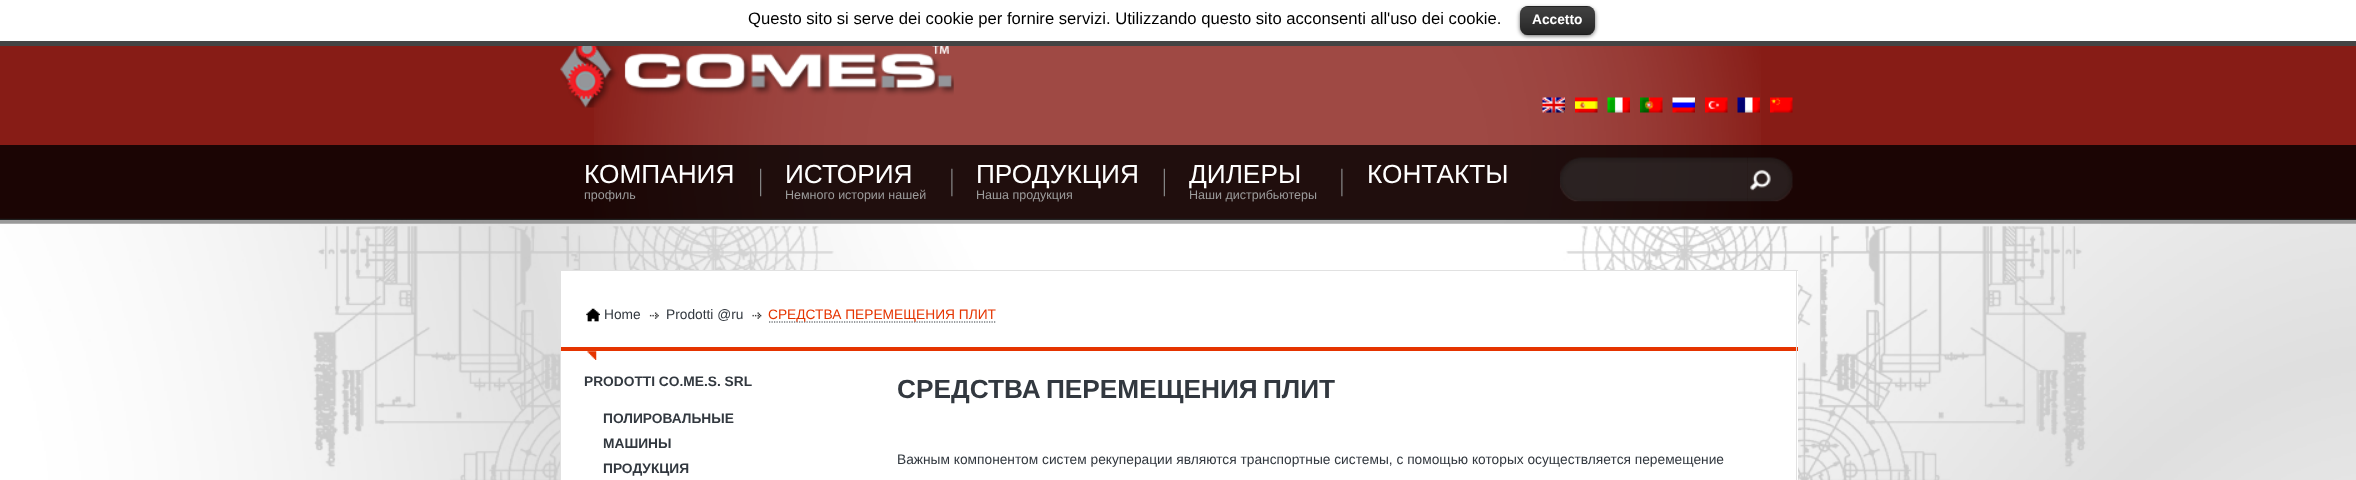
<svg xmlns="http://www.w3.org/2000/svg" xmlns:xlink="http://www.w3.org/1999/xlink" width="2356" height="480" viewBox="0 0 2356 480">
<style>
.cls-1{font:16.65px Liberation Sans;fill:#000000}
.cls-2{font:bold 13.75px Liberation Sans;fill:#ffffff}
.cls-3{font:26.25px Liberation Sans;fill:#ffffff}
.cls-4{font:12.5px Liberation Sans;fill:#9c9c9c}
.cls-5{font:13.75px Liberation Sans;fill:#32383f}
.cls-6{font:13.75px Liberation Sans;fill:#e53400}
.cls-7{font:bold 13.75px Liberation Sans;fill:#32383f}
.cls-8{font:bold 26.25px Liberation Sans;fill:#32383f}
</style>
<rect width="100%" height="100%" fill="#ffffff"/>
<image xlink:href="image0.png" x="0" y="46" width="2356" height="434"/>
<rect fill="#444444" x="0" y="41" width="2356" height="5"/>
<rect fill="#000000" fill-opacity="0.6" filter="blur(2px)" x="1520" y="8" width="75" height="28" rx="8"/>
<rect fill="#000000" x="1520" y="6" width="75" height="29" rx="8"/>
<image xlink:href="image1.png" x="1520" y="6" width="75" height="29"/>
<rect fill="#000000" fill-opacity="0.25" x="1524" y="34" width="67" height="1"/>
<image xlink:href="image2.png" x="594" y="46" width="1167" height="224"/>
<rect fill="#000000" fill-opacity="0.8" x="0" y="145" width="2356" height="75"/>
<image xlink:href="image3.png" x="560" y="46" width="394" height="62"/>
<image xlink:href="image4.png" x="1542" y="97" width="23" height="16"/>
<image xlink:href="image5.png" x="1575" y="97" width="23" height="16"/>
<image xlink:href="image6.png" x="1607" y="97" width="23" height="16"/>
<image xlink:href="image7.png" x="1640" y="97" width="23" height="16"/>
<image xlink:href="image8.png" x="1672" y="97" width="23" height="16"/>
<image xlink:href="image9.png" x="1705" y="97" width="23" height="16"/>
<image xlink:href="image10.png" x="1737" y="97" width="23" height="16"/>
<image xlink:href="image11.png" x="1770" y="97" width="23" height="16"/>
<image xlink:href="image12.png" x="760" y="168" width="2" height="29"/>
<image xlink:href="image13.png" x="951" y="168" width="2" height="29"/>
<image xlink:href="image14.png" x="1163" y="168" width="2" height="29"/>
<image xlink:href="image13.png" x="1341" y="168" width="2" height="29"/>
<image xlink:href="image15.png" x="1560" y="157" width="188" height="45"/>
<image xlink:href="image16.png" x="1747" y="157" width="46" height="45"/>
<rect fill="#ffffff" x="561" y="271" width="1237" height="76"/>
<rect fill="#e53400" x="560" y="347" width="1238" height="4"/>
<rect fill="#e1e1e1" x="572" y="270" width="1226" height="1"/>
<rect fill="#e1e1e1" x="1796" y="270" width="1" height="81"/>
<rect fill="#e1e1e1" x="560" y="347" width="1" height="133"/>
<image xlink:href="image17.png" x="586" y="308" width="14" height="14"/>
<image xlink:href="image18.png" x="649" y="312" width="10" height="7"/>
<image xlink:href="image19.png" x="752" y="312" width="10" height="7"/>
<path fill="none" stroke="#32383f" stroke-width="1.2" stroke-dasharray="1.25 1.25" d="M769 322H996"/>
<rect fill="#ffffff" x="561" y="351" width="1237" height="129"/>
<image xlink:href="image20.png" x="587" y="351" width="10" height="9"/>
<rect fill="#e1e1e1" x="1796" y="351" width="1" height="129"/>
<text class="cls-1" x="748" y="24">Questo sito si serve dei cookie per fornire servizi. Utilizzando questo sito acconsenti all'uso dei cookie.</text>
<text class="cls-2" x="1532" y="24">Accetto</text>
<text class="cls-3" x="584" y="183">КОМПАНИЯ</text>
<text class="cls-4" x="584" y="199">профиль</text>
<text class="cls-3" x="785" y="183">ИСТОРИЯ</text>
<text class="cls-4" x="785" y="199">Немного истории нашей</text>
<text class="cls-3" x="976" y="183">ПРОДУКЦИЯ</text>
<text class="cls-4" x="976" y="199">Наша продукция</text>
<text class="cls-3" x="1189" y="183">ДИЛЕРЫ</text>
<text class="cls-4" x="1189" y="199">Наши дистрибьютеры</text>
<text class="cls-3" x="1367" y="183">КОНТАКТЫ</text>
<text class="cls-5" x="604" y="319">Home</text>
<text class="cls-5" x="666" y="319">Prodotti @ru</text>
<text class="cls-6" x="768" y="319">СРЕДСТВА ПЕРЕМЕЩЕНИЯ ПЛИТ</text>
<text class="cls-7" x="584" y="386">PRODOTTI CO.ME.S. SRL</text>
<text class="cls-7"><tspan x="603" y="423">ПОЛИРОВАЛЬНЫЕ</tspan><tspan x="603" y="448">МАШИНЫ</tspan><tspan x="603" y="473">ПРОДУКЦИЯ</tspan></text>
<text class="cls-8" x="897" y="398" word-spacing="-2">СРЕДСТВА ПЕРЕМЕЩЕНИЯ ПЛИТ</text>
<text class="cls-5" x="897" y="464">Важным компонентом систем рекуперации являются транспортные системы, с помощью которых осуществляется перемещение</text>
</svg>
